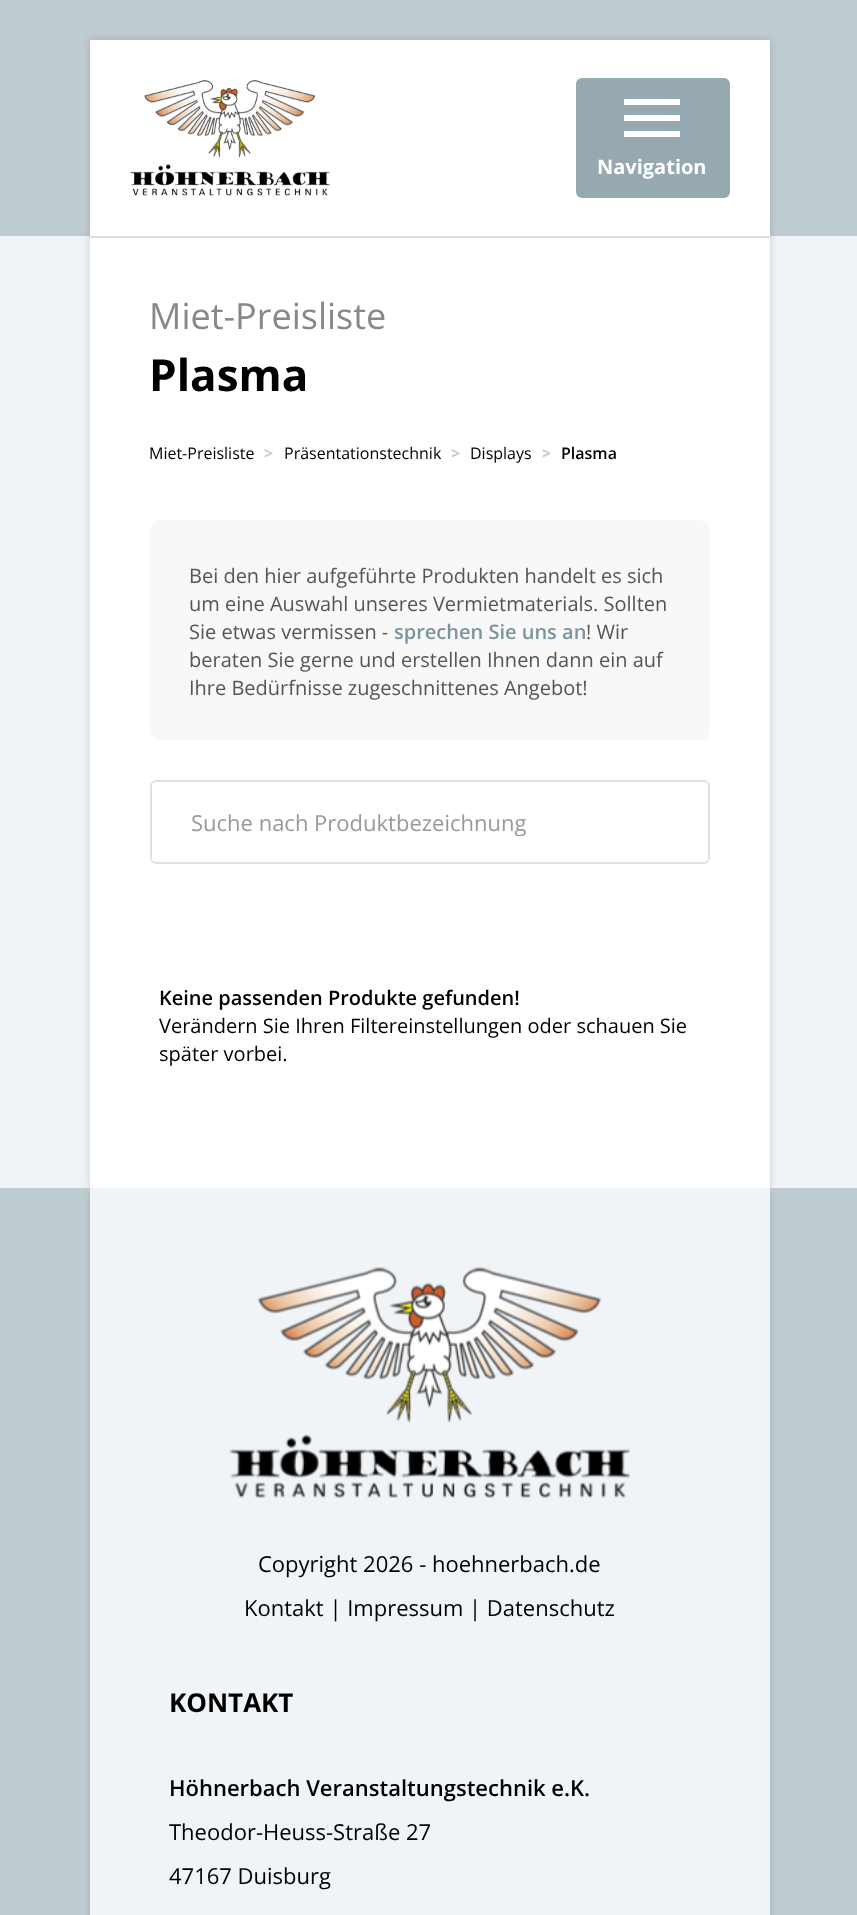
<svg xmlns="http://www.w3.org/2000/svg" xmlns:xlink="http://www.w3.org/1999/xlink" width="857" height="1915" viewBox="0 0 857 1915">
<style>
.cls-1{font:bold 20px Open Sans;fill:#ffffff}
.cls-2{font:36px Open Sans;fill:#888888}
.cls-3{font:bold 44px Open Sans;fill:#000000}
.cls-4{font:16px Open Sans;fill:#000000}
.cls-5{font:bold 16px Open Sans;fill:#bfccd2}
.cls-6{font:600 16px Open Sans;fill:#000000}
.cls-7{font:20px Open Sans;fill:#555555}
.cls-8{font:600 20px Open Sans;fill:#7b949e}
.cls-9{font:22px Open Sans;fill:#999999}
.cls-10{font:600 20px Open Sans;fill:#000000}
.cls-11{font:20px Open Sans;fill:#000000}
.cls-12{font:22px Open Sans;fill:#000000}
.cls-13{font:bold 26px Open Sans;fill:#000000}
.cls-14{font:600 22px Open Sans;fill:#000000}
</style>
<defs>
<clipPath id="clip1"><rect x="192" y="806" width="476" height="30"/></clipPath>
</defs>
<rect width="100%" height="100%" fill="#f0f4f7"/>
<rect fill="#bfccd2" x="0" y="0" width="857" height="236"/>
<rect fill="#000000" fill-opacity="0.15" filter="blur(4px)" x="90" y="40" width="680" height="1148"/>
<rect fill="#ffffff" x="90" y="40" width="680" height="1148"/>
<rect fill="#dddddd" x="90" y="236" width="680" height="2"/>
<image xlink:href="image0.png" x="130" y="80" width="200" height="116"/>
<rect fill="#96a8b0" stroke="#96a8b0" stroke-width="2" x="577" y="79" width="152" height="118" rx="5"/>
<path fill="#ffffff" d="M624 99H680V105H624ZM624 121V115H680V121ZM624 137V131H680V137Z"/>
<rect fill="#f8f8f8" x="150" y="520" width="560" height="220" rx="10"/>
<rect fill="none" stroke="#e1e1e1" stroke-width="2" x="151" y="781" width="558" height="82" rx="5"/>
<rect fill="#bfccd2" x="0" y="1188" width="857" height="727"/>
<rect fill="#000000" fill-opacity="0.15" filter="blur(3px)" x="90" y="1192" width="680" height="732"/>
<rect fill="#f0f4f7" x="90" y="1188" width="680" height="727"/>
<image xlink:href="image1.png" x="229" y="1267" width="401" height="231"/>
<text class="cls-1" x="597" y="174">Navigation</text>
<text class="cls-2" x="149" y="329">Miet-Preisliste</text>
<text class="cls-3" x="149" y="391">Plasma</text>
<text class="cls-4" x="149" y="459">Miet-Preisliste</text>
<text class="cls-5" x="264" y="459">&gt;</text>
<text class="cls-4" x="284" y="459">Präsentationstechnik</text>
<text class="cls-5" x="451" y="459">&gt;</text>
<text class="cls-4" x="470" y="459">Displays</text>
<text class="cls-5" x="542" y="459">&gt;</text>
<text class="cls-6" x="561" y="459">Plasma</text>
<text class="cls-7"><tspan x="189" y="583">Bei den hier aufgeführte Produkten handelt es sich</tspan><tspan x="189" y="611">um eine Auswahl unseres Vermietmaterials. Sollten</tspan><tspan x="189" y="639">Sie etwas vermissen -</tspan></text>
<text class="cls-8" x="394" y="639">sprechen Sie uns an</text>
<text class="cls-7" x="586" y="639">! Wir</text>
<text class="cls-7"><tspan x="189" y="667">beraten Sie gerne und erstellen Ihnen dann ein auf</tspan><tspan x="189" y="695">Ihre Bedürfnisse zugeschnittenes Angebot!</tspan></text>
<g clip-path="url(#clip1)">
<text class="cls-9" x="191" y="831">Suche nach Produktbezeichnung</text>
</g>
<text class="cls-10" x="159" y="1005">Keine passenden Produkte gefunden!</text>
<text class="cls-11"><tspan x="159" y="1033">Verändern Sie Ihren Filtereinstellungen oder schauen Sie</tspan><tspan x="159" y="1061">später vorbei.</tspan></text>
<text class="cls-12" x="258" y="1572">Copyright 2026 - hoehnerbach.de</text>
<text class="cls-12" x="244" y="1616">Kontakt | Impressum | Datenschutz</text>
<text class="cls-13" x="169" y="1712">KONTAKT</text>
<text class="cls-14" x="169" y="1796">Höhnerbach Veranstaltungstechnik e.K.</text>
<text class="cls-12" x="169" y="1840">Theodor-Heuss-Straße 27</text>
<text class="cls-12" x="169" y="1884">47167 Duisburg</text>
</svg>
